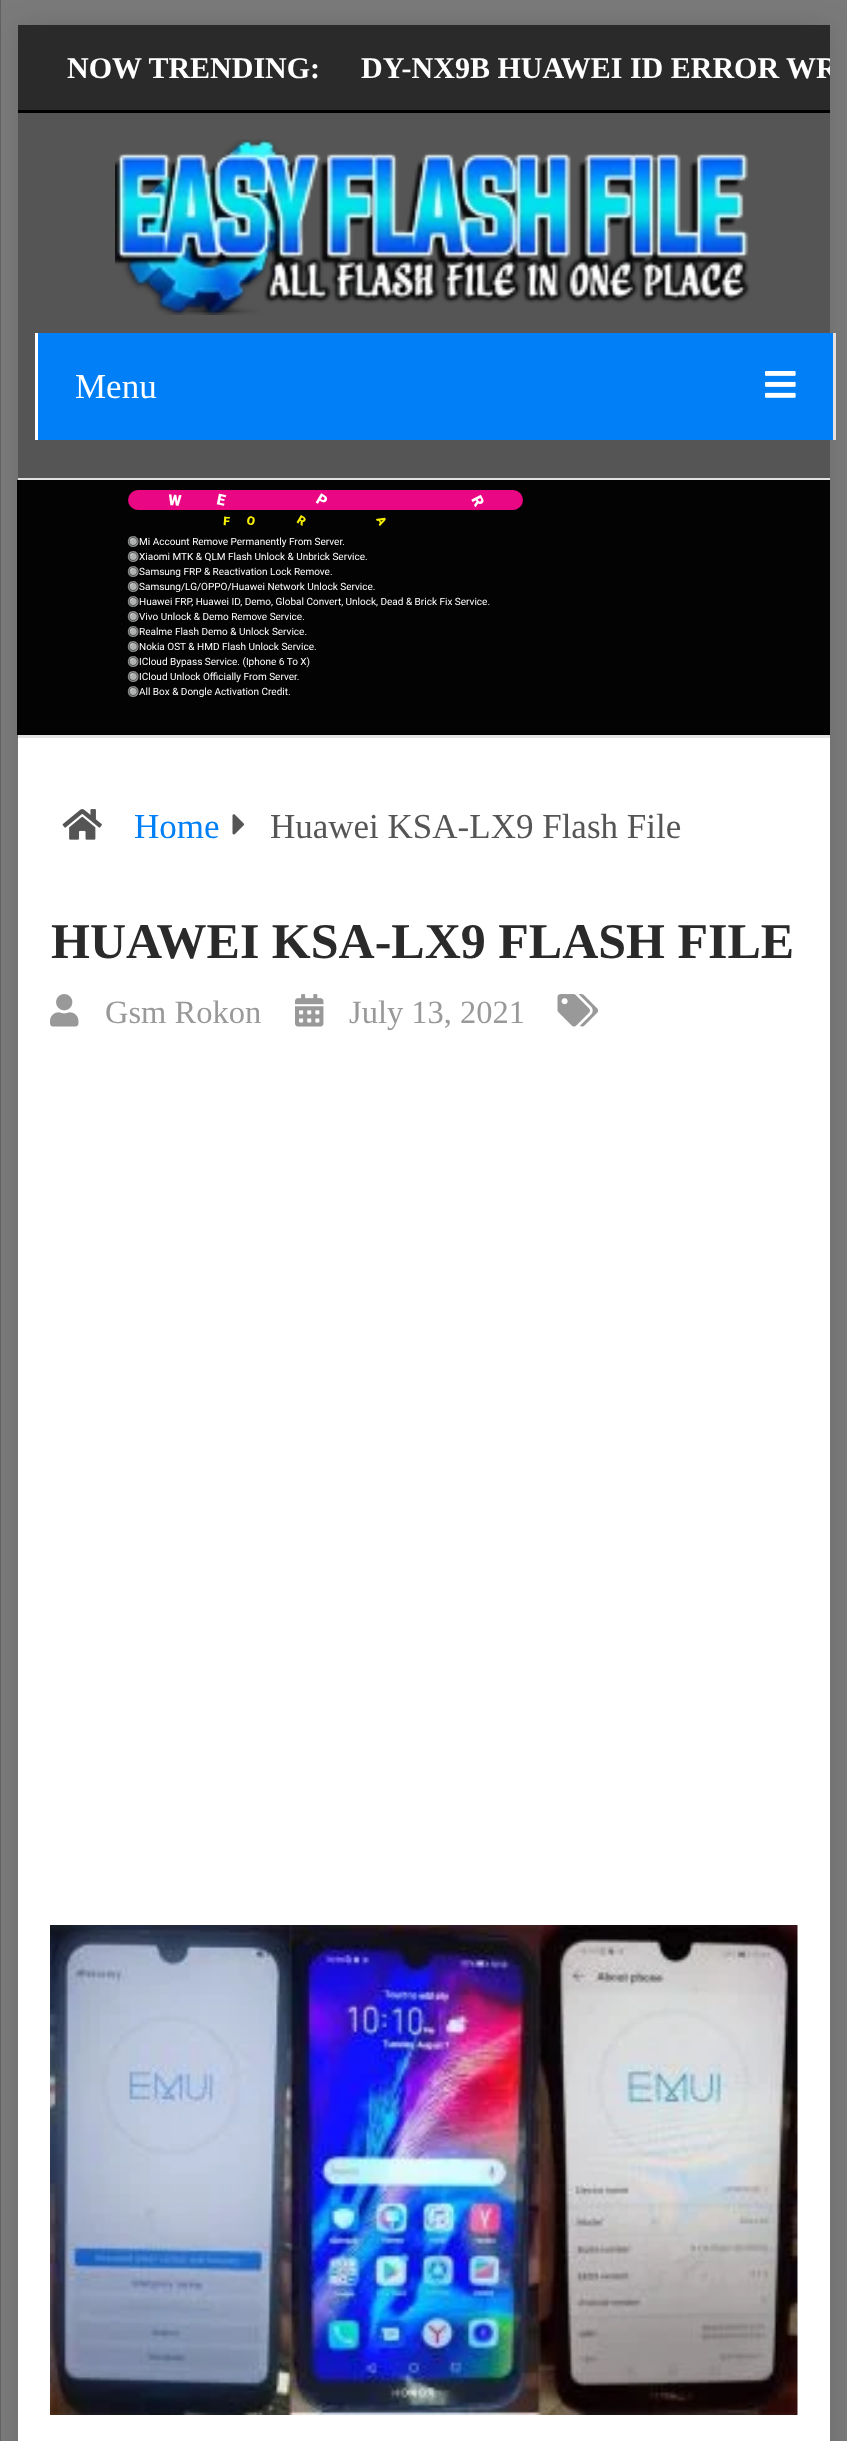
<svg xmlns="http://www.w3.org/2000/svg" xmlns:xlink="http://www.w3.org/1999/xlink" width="847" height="2441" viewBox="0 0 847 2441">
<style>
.cls-1{font:bold 30px Liberation Serif;fill:#ffffff}
.cls-2{font:35px Liberation Serif;fill:#ffffff}
.cls-3{font:900 15px Roboto;fill:#ffffff}
.cls-4{font:900 15px Roboto;letter-spacing:-1px;fill:#ffffff}
.cls-5{font:900 12px Roboto;fill:#f7ef00}
.cls-6{font:900 12px Roboto;letter-spacing:-1px;fill:#f7ef00}
.cls-7{font:10px Noto Color Emoji;fill:#ffffff}
.cls-8{font:10px Roboto;fill:#ffffff}
.cls-9{font:35px Liberation Serif;fill:#007ff7}
.cls-10{font:35px Liberation Serif;fill:#555555}
.cls-11{font:bold 50px Liberation Serif;fill:#2a2a2a}
.cls-12{font:32.5px Liberation Serif;fill:#999999}
</style>
<defs>
<clipPath id="clip1"><rect x="18" y="25" width="812" height="83"/></clipPath>
</defs>
<rect width="100%" height="100%" fill="#7a7a7a"/>
<rect fill="#323232" fill-opacity="0.17" filter="blur(12.5px)" x="18" y="25" width="812" height="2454"/>
<rect fill="#ffffff" x="18" y="738" width="812" height="1703"/>
<rect fill="#2a2a2a" x="18" y="25" width="812" height="85"/>
<rect fill="#000000" x="18" y="110" width="812" height="3"/>
<rect fill="#555555" x="18" y="113" width="812" height="365"/>
<rect fill="#e2e2e2" x="18" y="478" width="812" height="2"/>
<image xlink:href="image0.png" x="115" y="139" width="635" height="176"/>
<rect fill="#616161" x="0" y="0" width="1" height="2441"/>
<rect fill="#007ff7" x="38" y="333" width="795" height="107"/>
<rect fill="#e2e2e2" x="833" y="333" width="3" height="107"/>
<rect fill="#ffffff" x="35" y="333" width="3" height="107"/>
<image xlink:href="image1.png" x="765" y="371" width="31" height="27"/>
<rect fill="#e2e2e2" x="18" y="735" width="812" height="3"/>
<rect fill="#ffffff" x="18" y="480" width="812" height="255"/>
<rect fill="#000000" fill-opacity="0.99" x="17" y="480" width="813" height="255"/>
<rect fill="#ea0784" x="128" y="490" width="395" height="20" rx="10"/>
<image xlink:href="image2.png" x="62" y="809" width="40" height="31"/>
<image xlink:href="image3.png" x="232" y="814" width="12" height="21"/>
<image xlink:href="image4.png" x="50" y="994" width="29" height="33"/>
<image xlink:href="image5.png" x="295" y="994" width="29" height="33"/>
<image xlink:href="image6.png" x="557" y="994" width="42" height="33"/>
<image xlink:href="image7.png" x="50" y="1925" width="748" height="490"/>
<text class="cls-1" x="67" y="78">NOW TRENDING:</text>
<g clip-path="url(#clip1)">
<text class="cls-1" x="361" y="78">DY-NX9B HUAWEI ID ERROR WR</text>
</g>
<text class="cls-2" x="75" y="398">Menu</text>
<text class="cls-3" x="168" y="505" transform="rotate(4.1 168 505)">W</text>
<text class="cls-3" x="216" y="504" transform="rotate(11.8 216 504)">E</text>
<text class="cls-3" x="315" y="502" transform="rotate(30.9 315 502)">P</text>
<text class="cls-4" x="471" y="499" transform="rotate(62.3 471 499)">R</text>
<text class="cls-5" x="223" y="525" transform="rotate(4.1 223 525)">F</text>
<text class="cls-5" x="246" y="524" transform="rotate(11.8 246 524)">O</text>
<text class="cls-5" x="296" y="522" transform="rotate(31 296 522)">R</text>
<text class="cls-6" x="376" y="519" transform="rotate(62.5 376 519)">A</text>
<text class="cls-7" x="127" y="545">🔘</text>
<text class="cls-8" x="139" y="545">Mi Account Remove Permanently From Server.</text>
<text class="cls-7" x="127" y="560">🔘</text>
<text class="cls-8" x="139" y="560">Xiaomi MTK &amp; QLM Flash Unlock &amp; Unbrick Service.</text>
<text class="cls-7" x="127" y="575">🔘</text>
<text class="cls-8" x="139" y="575">Samsung FRP &amp; Reactivation Lock Remove.</text>
<text class="cls-7" x="127" y="590">🔘</text>
<text class="cls-8" x="139" y="590">Samsung/LG/OPPO/Huawei Network Unlock Service.</text>
<text class="cls-7" x="127" y="605">🔘</text>
<text class="cls-8" x="139" y="605">Huawei FRP, Huawei ID, Demo, Global Convert, Unlock, Dead &amp; Brick Fix Service.</text>
<text class="cls-7" x="127" y="620">🔘</text>
<text class="cls-8" x="139" y="620">Vivo Unlock &amp; Demo Remove Service.</text>
<text class="cls-7" x="127" y="635">🔘</text>
<text class="cls-8" x="139" y="635">Realme Flash Demo &amp; Unlock Service.</text>
<text class="cls-7" x="127" y="650">🔘</text>
<text class="cls-8" x="139" y="650">Nokia OST &amp; HMD Flash Unlock Service.</text>
<text class="cls-7" x="127" y="665">🔘</text>
<text class="cls-8" x="139" y="665">ICloud Bypass Service. (Iphone 6 To X)</text>
<text class="cls-7" x="127" y="680">🔘</text>
<text class="cls-8" x="139" y="680">ICloud Unlock Officially From Server.</text>
<text class="cls-7" x="127" y="695">🔘</text>
<text class="cls-8" x="139" y="695">All Box &amp; Dongle Activation Credit.</text>
<text class="cls-9" x="134" y="838">Home</text>
<text class="cls-10" x="270" y="838">Huawei KSA-LX9 Flash File</text>
<text class="cls-11" x="51" y="958">HUAWEI KSA-LX9 FLASH FILE</text>
<text class="cls-12" x="105" y="1023">Gsm Rokon</text>
<text class="cls-12" x="349" y="1023">July 13, 2021</text>
</svg>
